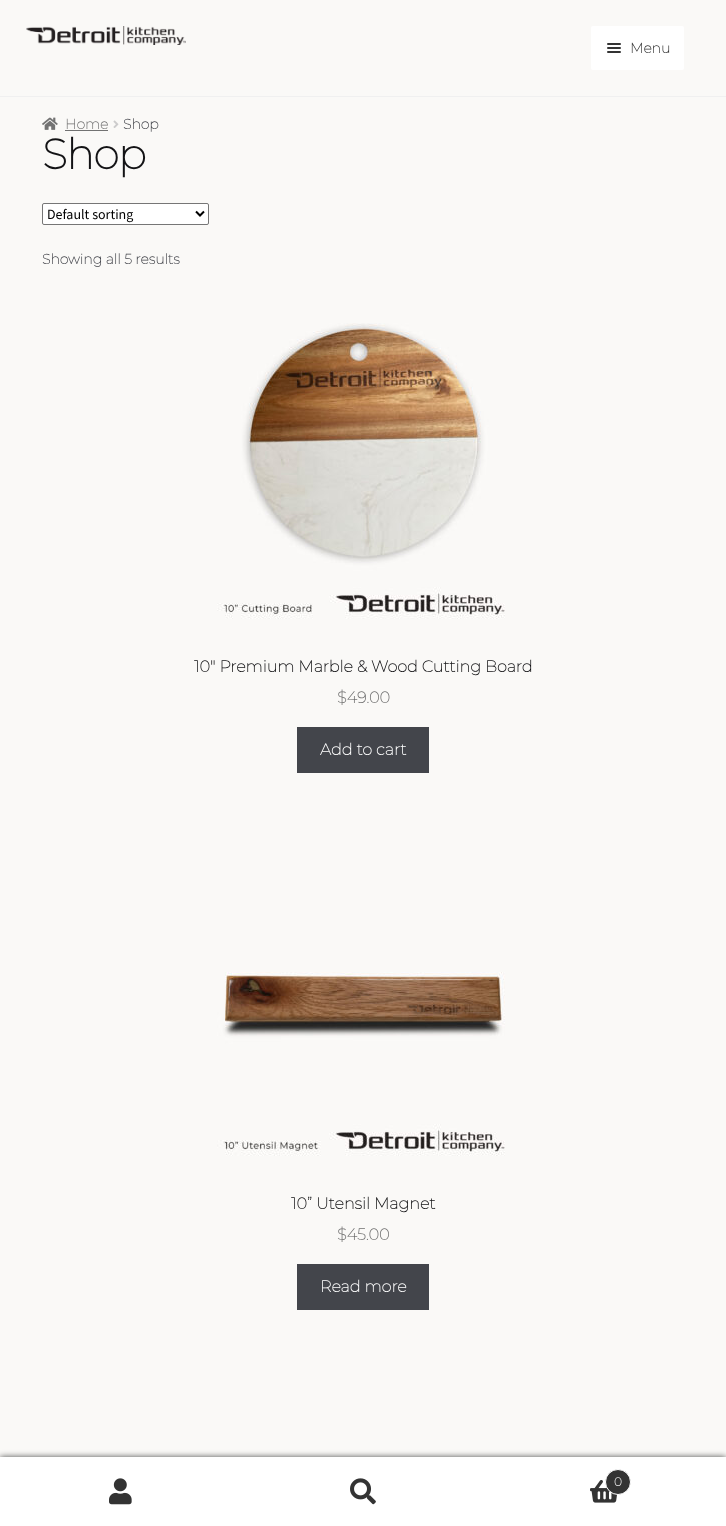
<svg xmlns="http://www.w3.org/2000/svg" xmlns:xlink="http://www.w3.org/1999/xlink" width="726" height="1526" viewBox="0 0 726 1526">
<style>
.cls-1{font:bold 14px Montserrat;fill:#333333}
.cls-2{font:bold 14px Montserrat;fill:#727272}
.cls-3{font:bold 14px Montserrat;fill:#43454b}
.cls-4{font:bold 42px Montserrat;letter-spacing:-1px;fill:#131315}
.cls-5{font:14px Source Sans Pro;fill:#000000}
.cls-6{font:bold 16px Montserrat;fill:#131315}
.cls-7{font:bold 16px Montserrat;fill:#727272}
.cls-8{font:bold 16px Montserrat;fill:#ffffff}
.cls-9{font:bold 12px Montserrat;fill:#ffffff}
</style>
<rect width="100%" height="100%" fill="#faf9f7"/>
<rect fill="#f0f0f0" x="0" y="96" width="726" height="1"/>
<image xlink:href="image0.png" x="26" y="26" width="160" height="19"/>
<rect fill="#ffffff" x="591" y="26" width="93" height="44" rx="2"/>
<rect fill="#333333" x="607" y="43" width="14" height="2" rx="1"/>
<rect fill="#333333" x="607" y="47" width="14" height="2" rx="1"/>
<rect fill="#333333" x="607" y="51" width="14" height="2" rx="1"/>
<image xlink:href="image1.png" x="42" y="117" width="16" height="13"/>
<rect fill="#727272" x="65" y="130" width="43" height="1"/>
<image xlink:href="image2.png" x="113" y="120" width="6" height="8"/>
<rect fill="#ffffff" stroke="#767676" x="42.5" y="203.5" width="166" height="21" rx="1.5"/>
<path fill="none" stroke="#000000" stroke-width="2" d="M196 211.5L200 215.5L204 211.5"/>
<image xlink:href="image3.png" x="217" y="323" width="288" height="296"/>
<rect fill="#43454b" x="297" y="727" width="132" height="46"/>
<image xlink:href="image4.png" x="217" y="972" width="288" height="184"/>
<rect fill="#43454b" x="297" y="1264" width="132" height="46"/>
<rect fill="#000000" fill-opacity="0.7" filter="blur(3px)" x="0" y="1457" width="726" height="69"/>
<rect fill="#ffffff" x="0" y="1457" width="726" height="1"/>
<rect fill="#ffffff" x="0" y="1458" width="726" height="68"/>
<image xlink:href="image5.png" x="109" y="1478" width="23" height="27"/>
<image xlink:href="image6.png" x="350" y="1478" width="26" height="27"/>
<image xlink:href="image7.png" x="590" y="1480" width="28" height="23"/>
<circle fill="#333333" stroke="#ffffff" cx="618" cy="1482" r="12.5"/>
<text class="cls-1" x="630" y="53">Menu</text>
<text class="cls-2" x="65" y="129">Home</text>
<text class="cls-3" x="123" y="129">Shop</text>
<text class="cls-4" x="42" y="169">Shop</text>
<text class="cls-5" x="47" y="219">Default sorting</text>
<text class="cls-3" x="42" y="264">Showing all 5 results</text>
<text class="cls-6" x="194" y="672">10″ Premium Marble &amp; Wood Cutting Board</text>
<text class="cls-7" x="337" y="703">$49.00</text>
<text class="cls-8" x="320" y="755">Add to cart</text>
<text class="cls-6" x="291" y="1209">10” Utensil Magnet</text>
<text class="cls-7" x="337" y="1240">$45.00</text>
<text class="cls-8" x="320" y="1292">Read more</text>
<text class="cls-9" x="614" y="1486">0</text>
</svg>
